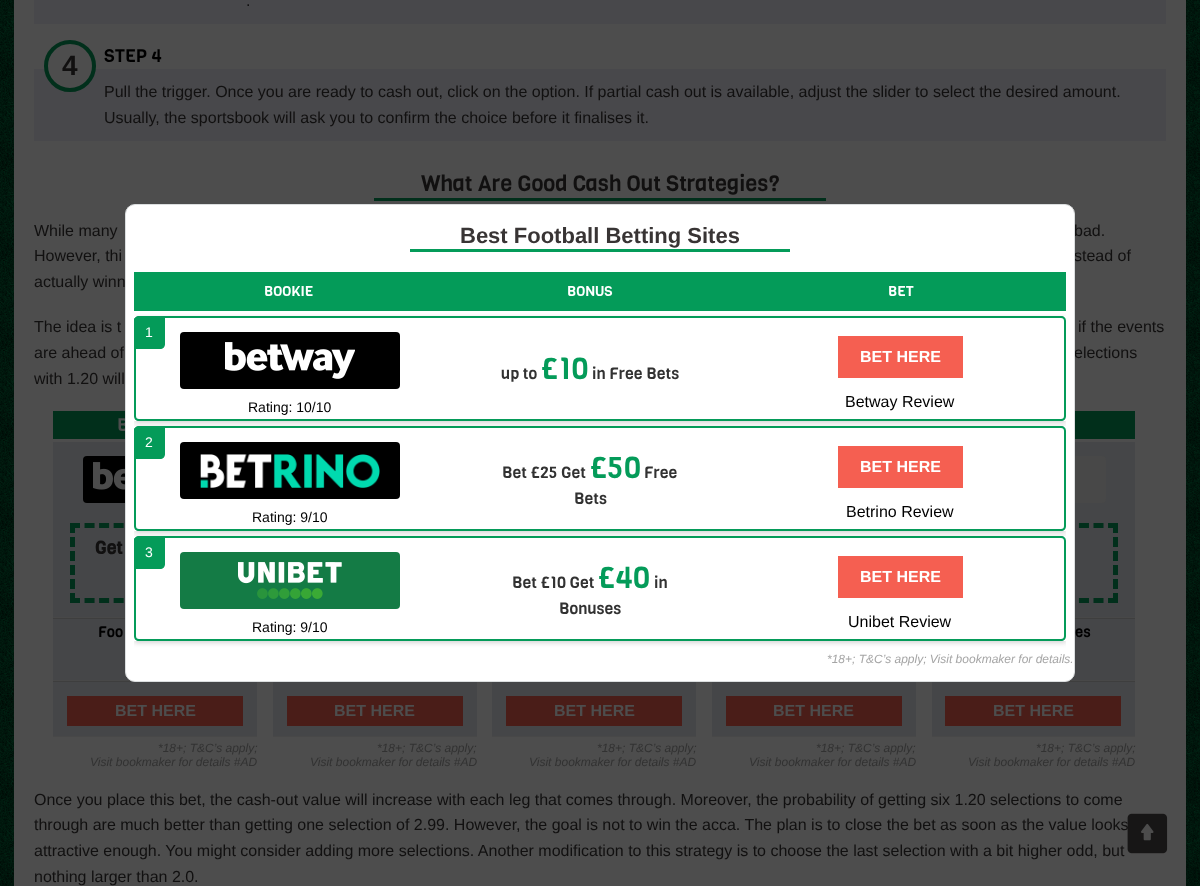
<svg xmlns="http://www.w3.org/2000/svg" xmlns:xlink="http://www.w3.org/1999/xlink" width="1200" height="886" viewBox="0 0 1200 886">
<style>
.cls-1{font:16px Liberation Sans;fill:#111010}
.cls-2{font:bold 28px Liberation Sans;fill:#111010}
.cls-3{font:18px Viga;fill:#000000}
.cls-4{font:22px Viga;fill:#111010}
.cls-5{font:18px Viga;fill:#4d4d4d}
.cls-6{font:bold 18px Viga;fill:#111010}
.cls-7{font:15px Viga;fill:#000000}
.cls-8{font:bold 16px Liberation Sans;fill:#4d4d4d}
.cls-9{font:italic 12px Liberation Sans;fill:#323232}
.cls-10{font:bold 22px Liberation Sans;fill:#383434}
.cls-11{font:14px Viga;fill:#ffffff}
.cls-12{font:14px Liberation Sans;fill:#ffffff}
.cls-13{font:14px Liberation Sans;fill:#000000}
.cls-14{font:16px Viga;fill:#323232}
.cls-15{font:30px Viga;fill:#049b59}
.cls-16{font:bold 16px Liberation Sans;fill:#ffffff}
.cls-17{font:16px Liberation Sans;fill:#000000}
.cls-18{font:italic 12px Liberation Sans;fill:#a5a5a5}
</style>
<defs>
<clipPath id="clip1"><rect x="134" y="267" width="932" height="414" rx="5"/></clipPath>
<clipPath id="clip2"><path d="M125 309H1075V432H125ZM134 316H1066V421H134Z" clip-rule="evenodd"/></clipPath>
<clipPath id="clip3"><rect x="134" y="267" width="932" height="414" rx="5"/></clipPath>
<clipPath id="clip4"><path d="M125 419H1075V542H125ZM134 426H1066V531H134Z" clip-rule="evenodd"/></clipPath>
<clipPath id="clip5"><path d="M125 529H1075V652H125ZM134 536H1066V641H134Z" clip-rule="evenodd"/></clipPath>
</defs>
<rect width="100%" height="100%" fill="#00361e"/>
<image xlink:href="image0.png" x="0" y="0" width="1200" height="886"/>
<rect fill="#4d4d4d" x="14" y="0" width="1172" height="886"/>
<rect fill="#48484b" x="34" y="0" width="1132" height="24"/>
<rect fill="#48484b" x="34" y="69" width="1132" height="72"/>
<circle fill="#4d4d4d" stroke="#012f1b" stroke-width="4" cx="70" cy="66" r="24"/>
<rect fill="#012f1b" x="374" y="198" width="452" height="3"/>
<rect fill="#454648" x="53" y="442" width="204" height="294"/>
<rect fill="#012f1b" x="53" y="411" width="72" height="28"/>
<rect fill="#484848" x="53" y="617" width="72" height="1"/>
<rect fill="#000000" x="83" y="456" width="145" height="47" rx="4"/>
<image xlink:href="image1.png" x="93" y="462" width="32" height="28"/>
<path fill="none" stroke="#012f1b" stroke-width="5" stroke-dasharray="10 4.55" d="M70 525.5H240"/>
<path fill="none" stroke="#012f1b" stroke-width="5" stroke-dasharray="10 4.55" d="M70 600.5H240"/>
<path fill="none" stroke="#012f1b" stroke-width="5" stroke-dasharray="10 4" d="M72.5 523V603"/>
<rect fill="#3e3e3e" x="53" y="618" width="72" height="1"/>
<rect fill="#484848" x="53" y="680" width="78" height="1"/>
<rect fill="#3e3e3e" x="53" y="681" width="82" height="1"/>
<rect fill="#484848" x="53" y="736" width="204" height="1"/>
<rect fill="#4a1d18" x="67" y="696" width="176" height="30"/>
<rect fill="#454648" x="273" y="682" width="204" height="54"/>
<rect fill="#484848" x="273" y="736" width="204" height="1"/>
<rect fill="#4a1d18" x="287" y="696" width="176" height="30"/>
<rect fill="#454648" x="492" y="682" width="204" height="54"/>
<rect fill="#484848" x="492" y="736" width="204" height="1"/>
<rect fill="#4a1d18" x="506" y="696" width="176" height="30"/>
<rect fill="#454648" x="712" y="682" width="204" height="54"/>
<rect fill="#484848" x="712" y="736" width="204" height="1"/>
<rect fill="#4a1d18" x="726" y="696" width="176" height="30"/>
<rect fill="#454648" x="932" y="442" width="203" height="294"/>
<rect fill="#012f1b" x="1075" y="411" width="60" height="28"/>
<rect fill="#484848" x="1075" y="617" width="60" height="1"/>
<rect fill="#484848" x="961" y="456" width="145" height="47" rx="4"/>
<path fill="none" stroke="#012f1b" stroke-width="5" stroke-dasharray="10 4.55" d="M948 525.5H1118"/>
<path fill="none" stroke="#012f1b" stroke-width="5" stroke-dasharray="10 4" d="M1115.5 523V603"/>
<path fill="none" stroke="#012f1b" stroke-width="5" stroke-dasharray="10 4.55" d="M948 600.5H1118"/>
<rect fill="#3e3e3e" x="1075" y="618" width="60" height="1"/>
<rect fill="#484848" x="1069" y="680" width="66" height="1"/>
<rect fill="#3e3e3e" x="1065" y="681" width="70" height="1"/>
<rect fill="#484848" x="932" y="736" width="203" height="1"/>
<rect fill="#4a1d18" x="945" y="696" width="176" height="30"/>
<text class="cls-1" x="246" y="6">.</text>
<text class="cls-2" x="62" y="75">4</text>
<text class="cls-3" x="104" y="62">STEP 4</text>
<text class="cls-1"><tspan x="104" y="97">Pull the trigger. Once you are ready to cash out, click on the option. If partial cash out is available, adjust the slider to select the desired amount.</tspan><tspan x="104" y="123">Usually, the sportsbook will ask you to confirm the choice before it finalises it.</tspan></text>
<text class="cls-4" x="421" y="191">What Are Good Cash Out Strategies?</text>
<text class="cls-1" x="34" y="236">While many</text>
<text class="cls-1" x="1074" y="236">bad.</text>
<text class="cls-1" x="34" y="261">However, thi</text>
<text class="cls-1" x="1074" y="261">stead of</text>
<text class="cls-1" x="34" y="287">actually winn</text>
<text class="cls-1" x="34" y="332">The idea is t</text>
<text class="cls-1" x="1078" y="332">if the events</text>
<text class="cls-1" x="34" y="358">are ahead of</text>
<text class="cls-1" x="1074" y="358">elections</text>
<text class="cls-1" x="34" y="384">with 1.20 will</text>
<text class="cls-5" x="117" y="431">B</text>
<text class="cls-6" x="95" y="554">Get</text>
<text class="cls-7" x="98" y="637">Foo</text>
<text class="cls-8" x="115" y="716">BET HERE</text>
<text class="cls-9" x="158" y="752">*18+; T&amp;C’s apply;</text>
<text class="cls-9" x="90" y="766">Visit bookmaker for details #AD</text>
<text class="cls-8" x="334" y="716">BET HERE</text>
<text class="cls-9" x="377" y="752">*18+; T&amp;C’s apply;</text>
<text class="cls-9" x="310" y="766">Visit bookmaker for details #AD</text>
<text class="cls-8" x="554" y="716">BET HERE</text>
<text class="cls-9" x="597" y="752">*18+; T&amp;C’s apply;</text>
<text class="cls-9" x="529" y="766">Visit bookmaker for details #AD</text>
<text class="cls-8" x="773" y="716">BET HERE</text>
<text class="cls-9" x="816" y="752">*18+; T&amp;C’s apply;</text>
<text class="cls-9" x="749" y="766">Visit bookmaker for details #AD</text>
<text class="cls-7" x="1075" y="637">es</text>
<text class="cls-8" x="993" y="716">BET HERE</text>
<text class="cls-9" x="1036" y="752">*18+; T&amp;C’s apply;</text>
<text class="cls-9" x="968" y="766">Visit bookmaker for details #AD</text>
<text class="cls-1"><tspan x="34" y="805">Once you place this bet, the cash-out value will increase with each leg that comes through. Moreover, the probability of getting six 1.20 selections to come</tspan><tspan x="34" y="830">through are much better than getting one selection of 2.99. However, the goal is not to win the acca. The plan is to close the bet as soon as the value looks</tspan><tspan x="34" y="856">attractive enough. You might consider adding more selections. Another modification to this strategy is to choose the last selection with a bit higher odd, but</tspan><tspan x="34" y="882">nothing larger than 2.0.</tspan></text>
<rect fill="#ffffff" stroke="#dbdedf" x="125.5" y="204.5" width="949" height="477" rx="9.5"/>
<text class="cls-10" x="460" y="243">Best Football Betting Sites</text>
<rect fill="#049b59" x="410" y="249" width="380" height="3"/>
<rect fill="#049b59" x="134" y="272" width="932" height="39"/>
<text class="cls-11" x="264" y="296">BOOKIE</text>
<text class="cls-11" x="567" y="296">BONUS</text>
<text class="cls-11" x="888" y="296">BET</text>
<g clip-path="url(#clip1)">
<g clip-path="url(#clip2)">
<rect fill="#000000" fill-opacity="0.16" filter="blur(2.5px)" x="134" y="318" width="932" height="105"/>
</g>
</g>
<path fill="#049b59" fill-rule="evenodd" d="M139 316H444V421H139C136 421 134 419 134 416V321C134 318 136 316 139 316ZM139 318H444V419H139C137 419 136 418 136 416V321C136 319 137 318 139 318Z"/>
<g clip-path="url(#clip3)">
<path fill="#049b59" d="M138 317H165V344C165 347 163 349 160 349H133V322C133 319 135 317 138 317Z"/>
</g>
<text class="cls-12" x="145" y="337">1</text>
<rect fill="#000000" x="180" y="332" width="220" height="57" rx="4"/>
<image xlink:href="image2.png" x="225" y="342" width="130" height="37"/>
<text class="cls-13" x="248" y="412">Rating: 10/10</text>
<rect fill="#049b59" x="444" y="316" width="292" height="2"/>
<rect fill="#049b59" x="444" y="419" width="292" height="2"/>
<text class="cls-14" x="501" y="379">up to</text>
<text class="cls-15" x="541" y="379">£10</text>
<text class="cls-14" x="592" y="379">in Free Bets</text>
<path fill="#049b59" fill-rule="evenodd" d="M736 316H1061C1064 316 1066 318 1066 321V416C1066 419 1064 421 1061 421H736ZM736 318H1061C1063 318 1064 319 1064 321V416C1064 418 1063 419 1061 419H736Z"/>
<rect fill="#f55f51" x="838" y="336" width="125" height="42"/>
<text class="cls-16" x="860" y="362">BET HERE</text>
<text class="cls-17" x="845" y="407">Betway Review</text>
<g clip-path="url(#clip1)">
<g clip-path="url(#clip4)">
<rect fill="#000000" fill-opacity="0.16" filter="blur(2.5px)" x="134" y="428" width="932" height="105"/>
</g>
</g>
<path fill="#049b59" fill-rule="evenodd" d="M139 426H444V531H139C136 531 134 529 134 526V431C134 428 136 426 139 426ZM139 428H444V529H139C137 529 136 528 136 526V431C136 429 137 428 139 428Z"/>
<g clip-path="url(#clip3)">
<path fill="#049b59" d="M138 427H165V454C165 457 163 459 160 459H133V432C133 429 135 427 138 427Z"/>
</g>
<text class="cls-12" x="145" y="447">2</text>
<rect fill="#000000" x="180" y="442" width="220" height="57" rx="4"/>
<image xlink:href="image3.png" x="200" y="454" width="180" height="34"/>
<text class="cls-13" x="252" y="522">Rating: 9/10</text>
<rect fill="#049b59" x="444" y="426" width="292" height="2"/>
<rect fill="#049b59" x="444" y="529" width="292" height="2"/>
<text class="cls-14" x="502" y="478">Bet £25 Get</text>
<text class="cls-15" x="590" y="478">£50</text>
<text class="cls-14" x="644" y="478">Free</text>
<text class="cls-14" x="574" y="504">Bets</text>
<path fill="#049b59" fill-rule="evenodd" d="M736 426H1061C1064 426 1066 428 1066 431V526C1066 529 1064 531 1061 531H736ZM736 428H1061C1063 428 1064 429 1064 431V526C1064 528 1063 529 1061 529H736Z"/>
<rect fill="#f55f51" x="838" y="446" width="125" height="42"/>
<text class="cls-16" x="860" y="472">BET HERE</text>
<text class="cls-17" x="846" y="517">Betrino Review</text>
<g clip-path="url(#clip1)">
<g clip-path="url(#clip5)">
<rect fill="#000000" fill-opacity="0.16" filter="blur(2.5px)" x="134" y="538" width="932" height="105"/>
</g>
</g>
<path fill="#049b59" fill-rule="evenodd" d="M139 536H444V641H139C136 641 134 639 134 636V541C134 538 136 536 139 536ZM139 538H444V639H139C137 639 136 638 136 636V541C136 539 137 538 139 538Z"/>
<g clip-path="url(#clip3)">
<path fill="#049b59" d="M138 537H165V564C165 567 163 569 160 569H133V542C133 539 135 537 138 537Z"/>
</g>
<text class="cls-12" x="145" y="557">3</text>
<rect fill="#147b45" x="180" y="552" width="220" height="57" rx="4"/>
<image xlink:href="image4.png" x="238" y="562" width="104" height="37"/>
<text class="cls-13" x="252" y="632">Rating: 9/10</text>
<rect fill="#049b59" x="444" y="536" width="292" height="2"/>
<rect fill="#049b59" x="444" y="639" width="292" height="2"/>
<text class="cls-14" x="512" y="588">Bet £10 Get</text>
<text class="cls-15" x="598" y="588">£40</text>
<text class="cls-14" x="654" y="588">in</text>
<text class="cls-14" x="559" y="614">Bonuses</text>
<path fill="#049b59" fill-rule="evenodd" d="M736 536H1061C1064 536 1066 538 1066 541V636C1066 639 1064 641 1061 641H736ZM736 538H1061C1063 538 1064 539 1064 541V636C1064 638 1063 639 1061 639H736Z"/>
<rect fill="#f55f51" x="838" y="556" width="125" height="42"/>
<text class="cls-16" x="860" y="582">BET HERE</text>
<text class="cls-17" x="848" y="627">Unibet Review</text>
<text class="cls-18" x="827" y="663">*18+; T&amp;C’s apply; Visit bookmaker for details.</text>
<image xlink:href="image5.png" x="1127" y="813" width="41" height="41"/>
</svg>
